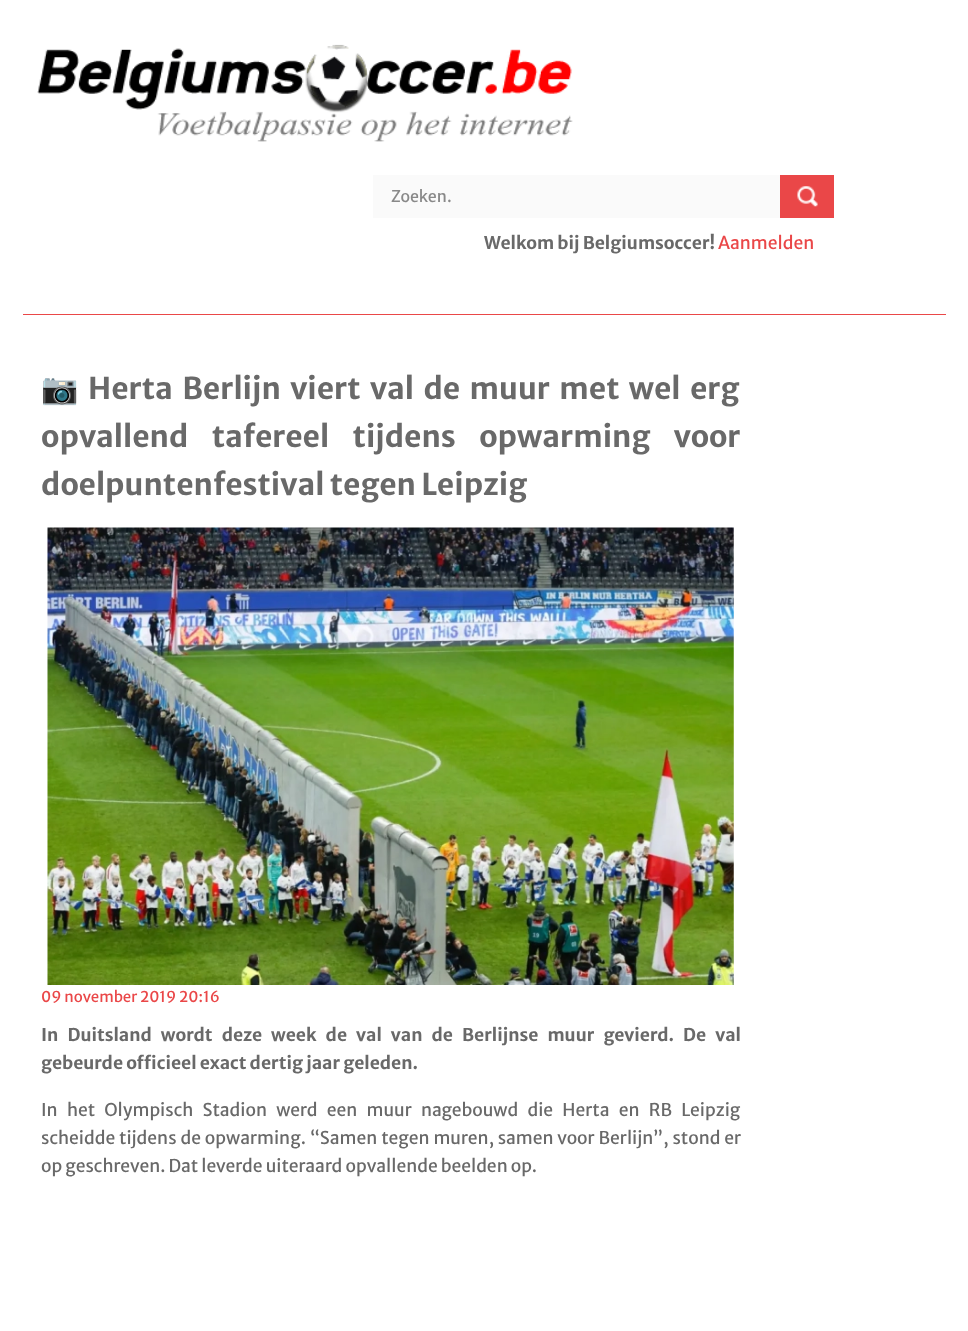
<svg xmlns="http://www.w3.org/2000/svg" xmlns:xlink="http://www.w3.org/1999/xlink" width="968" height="1331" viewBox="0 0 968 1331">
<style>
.cls-1{font:16px Merriweather Sans;fill:#898989}
.cls-2{font:bold 17.5px Merriweather Sans;fill:#696969}
.cls-3{font:17.5px Merriweather Sans;fill:#ea4748}
.cls-4{font:bold 30px Noto Color Emoji;fill:#696969}
.cls-5{font:bold 30px Merriweather Sans;fill:#696969}
.cls-6{font:15px Merriweather Sans;fill:#ea4748}
.cls-7{font:17.5px Merriweather Sans;fill:#696969}
</style>
<rect width="100%" height="100%" fill="#ffffff"/>
<image xlink:href="image0.png" x="37" y="44" width="536" height="98"/>
<rect fill="#fafafa" x="373" y="175" width="407" height="43"/>
<rect fill="#ea4748" x="780" y="175" width="54" height="43"/>
<image xlink:href="image1.png" x="797" y="186" width="21" height="21"/>
<rect fill="#ea4748" x="23" y="314" width="923" height="1"/>
<image xlink:href="image2.png" x="47" y="527" width="687" height="458"/>
<text class="cls-1" x="391" y="202">Zoeken.</text>
<text class="cls-2" x="484" y="249">Welkom bij Belgiumsoccer!</text>
<text class="cls-3" x="718" y="249">Aanmelden</text>
<text class="cls-4" x="41" y="399">📷</text>
<text class="cls-5" x="88" y="399" word-spacing="4">Herta Berlijn viert val de muur met wel erg</text>
<text class="cls-5"><tspan x="41" y="447" word-spacing="18">opvallend tafereel tijdens opwarming voor</tspan><tspan x="41" y="495">doelpuntenfestival tegen Leipzig</tspan></text>
<text class="cls-6" x="41" y="1002">09 november 2019 20:16</text>
<text class="cls-2"><tspan x="41" y="1041" word-spacing="5.9">In Duitsland wordt deze week de val van de Berlijnse muur gevierd. De val</tspan><tspan x="41" y="1069">gebeurde officieel exact dertig jaar geleden.</tspan></text>
<text class="cls-7"><tspan x="41" y="1116" word-spacing="6.1">In het Olympisch Stadion werd een muur nagebouwd die Herta en RB Leipzig</tspan><tspan x="41" y="1144" word-spacing="0.75">scheidde tijdens de opwarming. “Samen tegen muren, samen voor Berlijn”, stond er</tspan><tspan x="41" y="1172">op geschreven. Dat leverde uiteraard opvallende beelden op.</tspan></text>
</svg>
